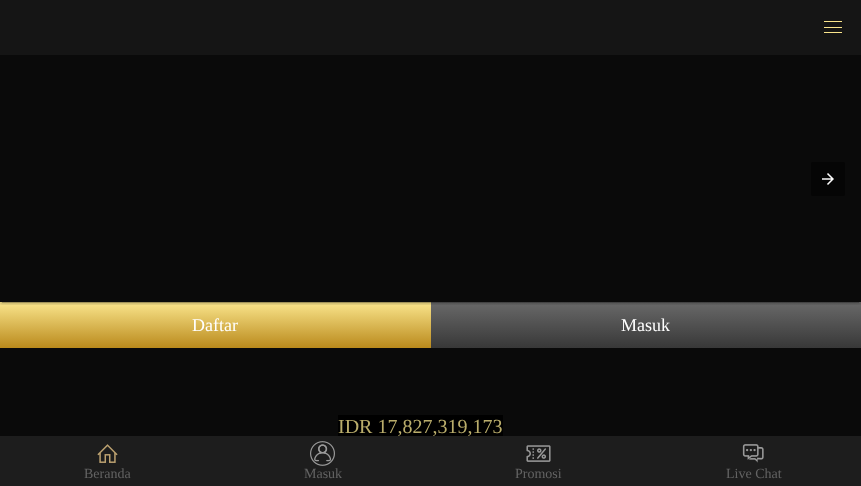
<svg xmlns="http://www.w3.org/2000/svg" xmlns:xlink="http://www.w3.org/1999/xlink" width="861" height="486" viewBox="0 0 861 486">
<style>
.cls-1{font:18px Liberation Serif;fill:#ffffff}
.cls-2{font:20px Liberation Serif;fill:#baad6b}
.cls-3{font:14px Liberation Serif;fill:#636363}
</style>
<defs>
<linearGradient id="g1" gradientUnits="userSpaceOnUse" x1="216" y1="302" x2="216" y2="348"><stop offset="0" stop-color="#fae58c"/><stop offset="1" stop-color="#ba8a1c"/></linearGradient>
<linearGradient id="g2" gradientUnits="userSpaceOnUse" x1="646" y1="302" x2="646" y2="348"><stop offset="0" stop-color="#696969"/><stop offset="1" stop-color="#383838"/></linearGradient>
<clipPath id="clip1"><rect x="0" y="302" width="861" height="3"/></clipPath>
<clipPath id="clip2"><rect x="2" y="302" width="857" height="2"/></clipPath>
</defs>
<rect width="100%" height="100%" fill="#0a0a0a"/>
<rect fill="url(#g1)" x="0" y="302" width="431" height="46"/>
<rect fill="url(#g2)" x="431" y="302" width="430" height="46"/>
<g clip-path="url(#clip1)">
<rect fill="#000000" fill-opacity="0.12" filter="blur(2.5px)" x="0" y="56" width="861" height="247"/>
<rect fill="#000000" fill-opacity="0.14" filter="blur(1px)" x="0" y="57" width="861" height="247"/>
</g>
<rect fill="#151515" x="0" y="0" width="861" height="55"/>
<rect fill="#fae58c" x="824" y="21" width="18" height="1"/>
<rect fill="#fae58c" x="824" y="27" width="18" height="1"/>
<rect fill="#fae58c" x="824" y="32" width="18" height="1"/>
<g clip-path="url(#clip2)">
<rect fill="#000000" fill-opacity="0.2" filter="blur(0.5px)" x="2" y="60" width="857" height="243"/>
</g>
<rect fill="#050505" x="811" y="162" width="34" height="34" rx="2"/>
<image xlink:href="image0.png" x="822" y="173" width="12" height="12"/>
<rect fill="#000000" x="338" y="415" width="165" height="21"/>
<text class="cls-1" x="192" y="331">Daftar</text>
<text class="cls-1" x="621" y="331">Masuk</text>
<text class="cls-2" x="338" y="433">IDR 17,827,319,173</text>
<rect fill="#1d1d1d" x="0" y="436" width="861" height="50"/>
<image xlink:href="image1.png" x="97" y="444" width="21" height="19"/>
<text class="cls-3" x="84" y="478">Beranda</text>
<image xlink:href="image2.png" x="310" y="441" width="25" height="25"/>
<text class="cls-3" x="304" y="478">Masuk</text>
<image xlink:href="image3.png" x="526" y="445" width="25" height="17"/>
<text class="cls-3" x="515" y="478">Promosi</text>
<image xlink:href="image4.png" x="742" y="444" width="22" height="19"/>
<text class="cls-3" x="726" y="478">Live Chat</text>
</svg>
